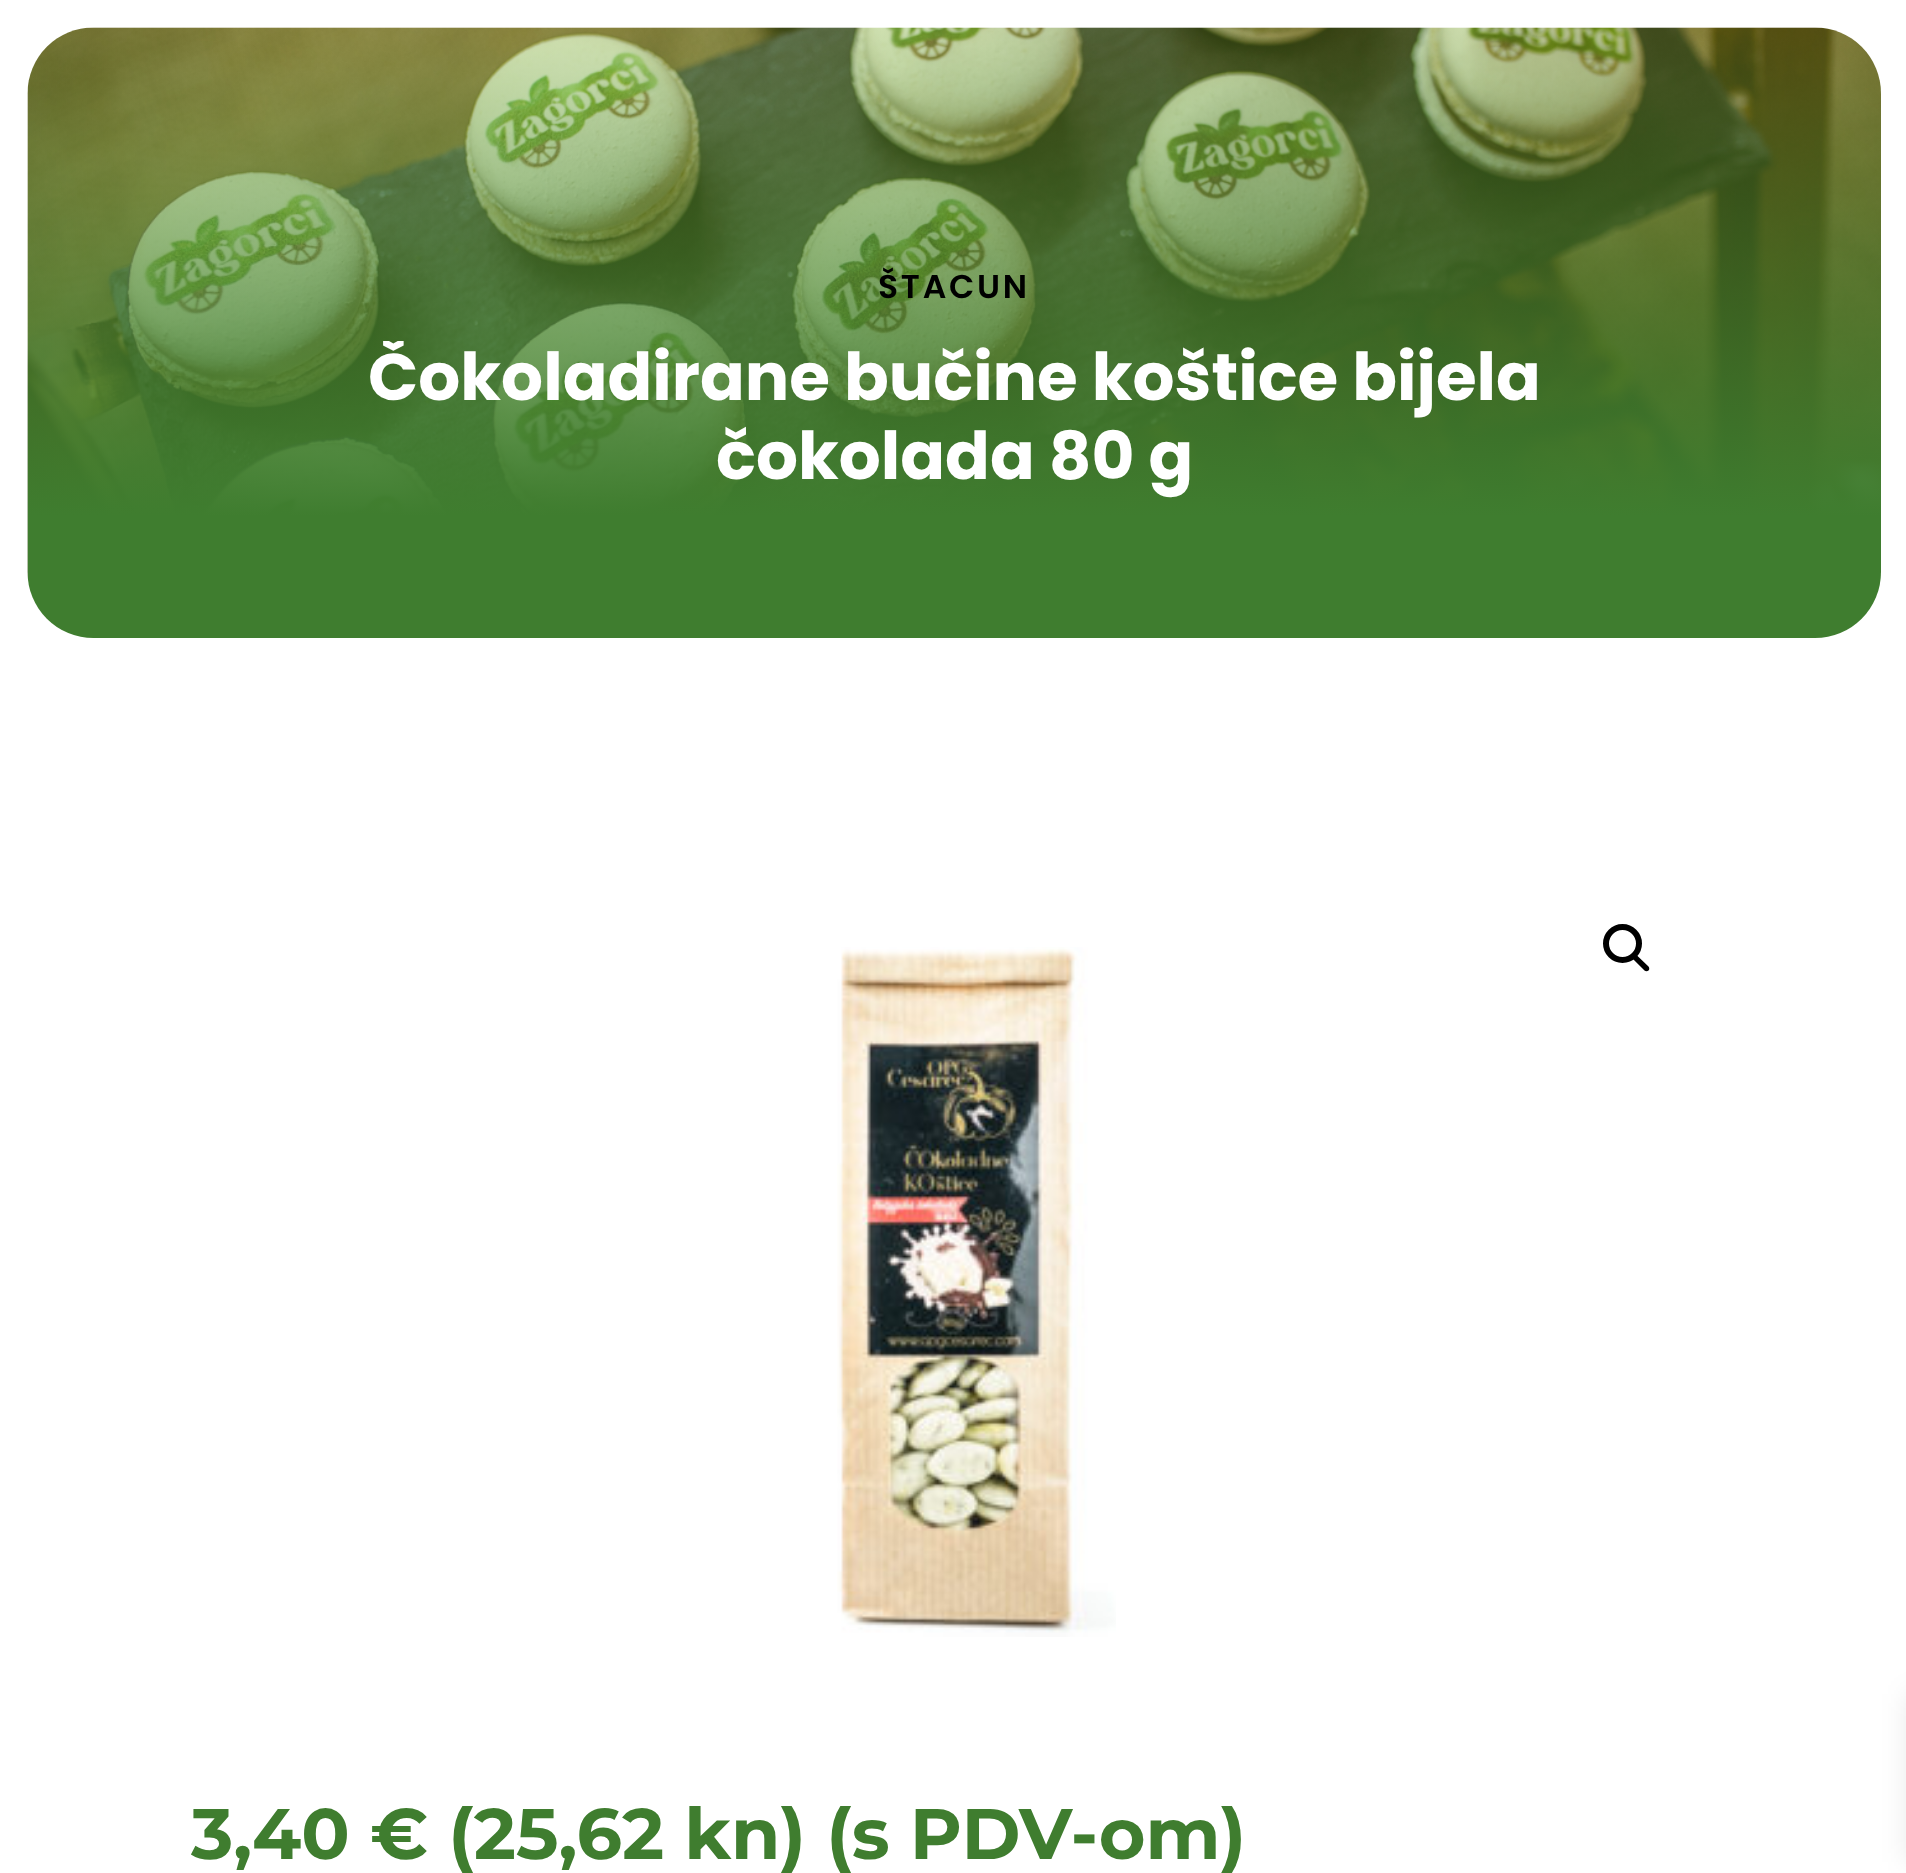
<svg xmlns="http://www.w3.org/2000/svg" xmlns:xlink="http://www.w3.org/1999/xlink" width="1906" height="1873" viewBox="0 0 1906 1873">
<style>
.cls-1{font:600 33px Poppins;letter-spacing:2.75px;fill:#000000}
.cls-2{font:bold 66px Poppins;fill:#ffffff}
.cls-3{font:bold 71.5px Montserrat;fill:#3f7d2f}
</style>
<defs>
<clipPath id="clip1"><rect x="212" y="341" width="1485" height="184" rx="41"/></clipPath>
</defs>
<rect width="100%" height="100%" fill="#ffffff"/>
<image xlink:href="image0.png" x="27" y="27" width="1854" height="611"/>
<image xlink:href="image1.png" x="837" y="947" width="279" height="690"/>
<circle fill="none" stroke="#000000" stroke-width="6" cx="1622.5" cy="943.5" r="16.5"/>
<path fill="#000000" d="M1633 955C1634 954 1635.5 954 1636.5 955L1648.5 966.5C1649.5 968 1649.5 969.5 1648.5 970.5C1647.5 971.5 1645.5 971.5 1644.5 970.5L1633 959C1632 958 1632 956 1633 955Z"/>
<rect fill="#000000" fill-opacity="0.1" filter="blur(14px)" x="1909" y="1694" width="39" height="168"/>
<text class="cls-1" x="878" y="298">ŠTACUN</text>
<g clip-path="url(#clip1)">
<text class="cls-2" x="368" y="400">Čokoladirane bučine koštice bijela</text>
</g>
<text class="cls-2" x="716" y="479">čokolada 80 g</text>
<text class="cls-3" x="191" y="1859">3,40 € (25,62 kn) (s PDV-om)</text>
</svg>
